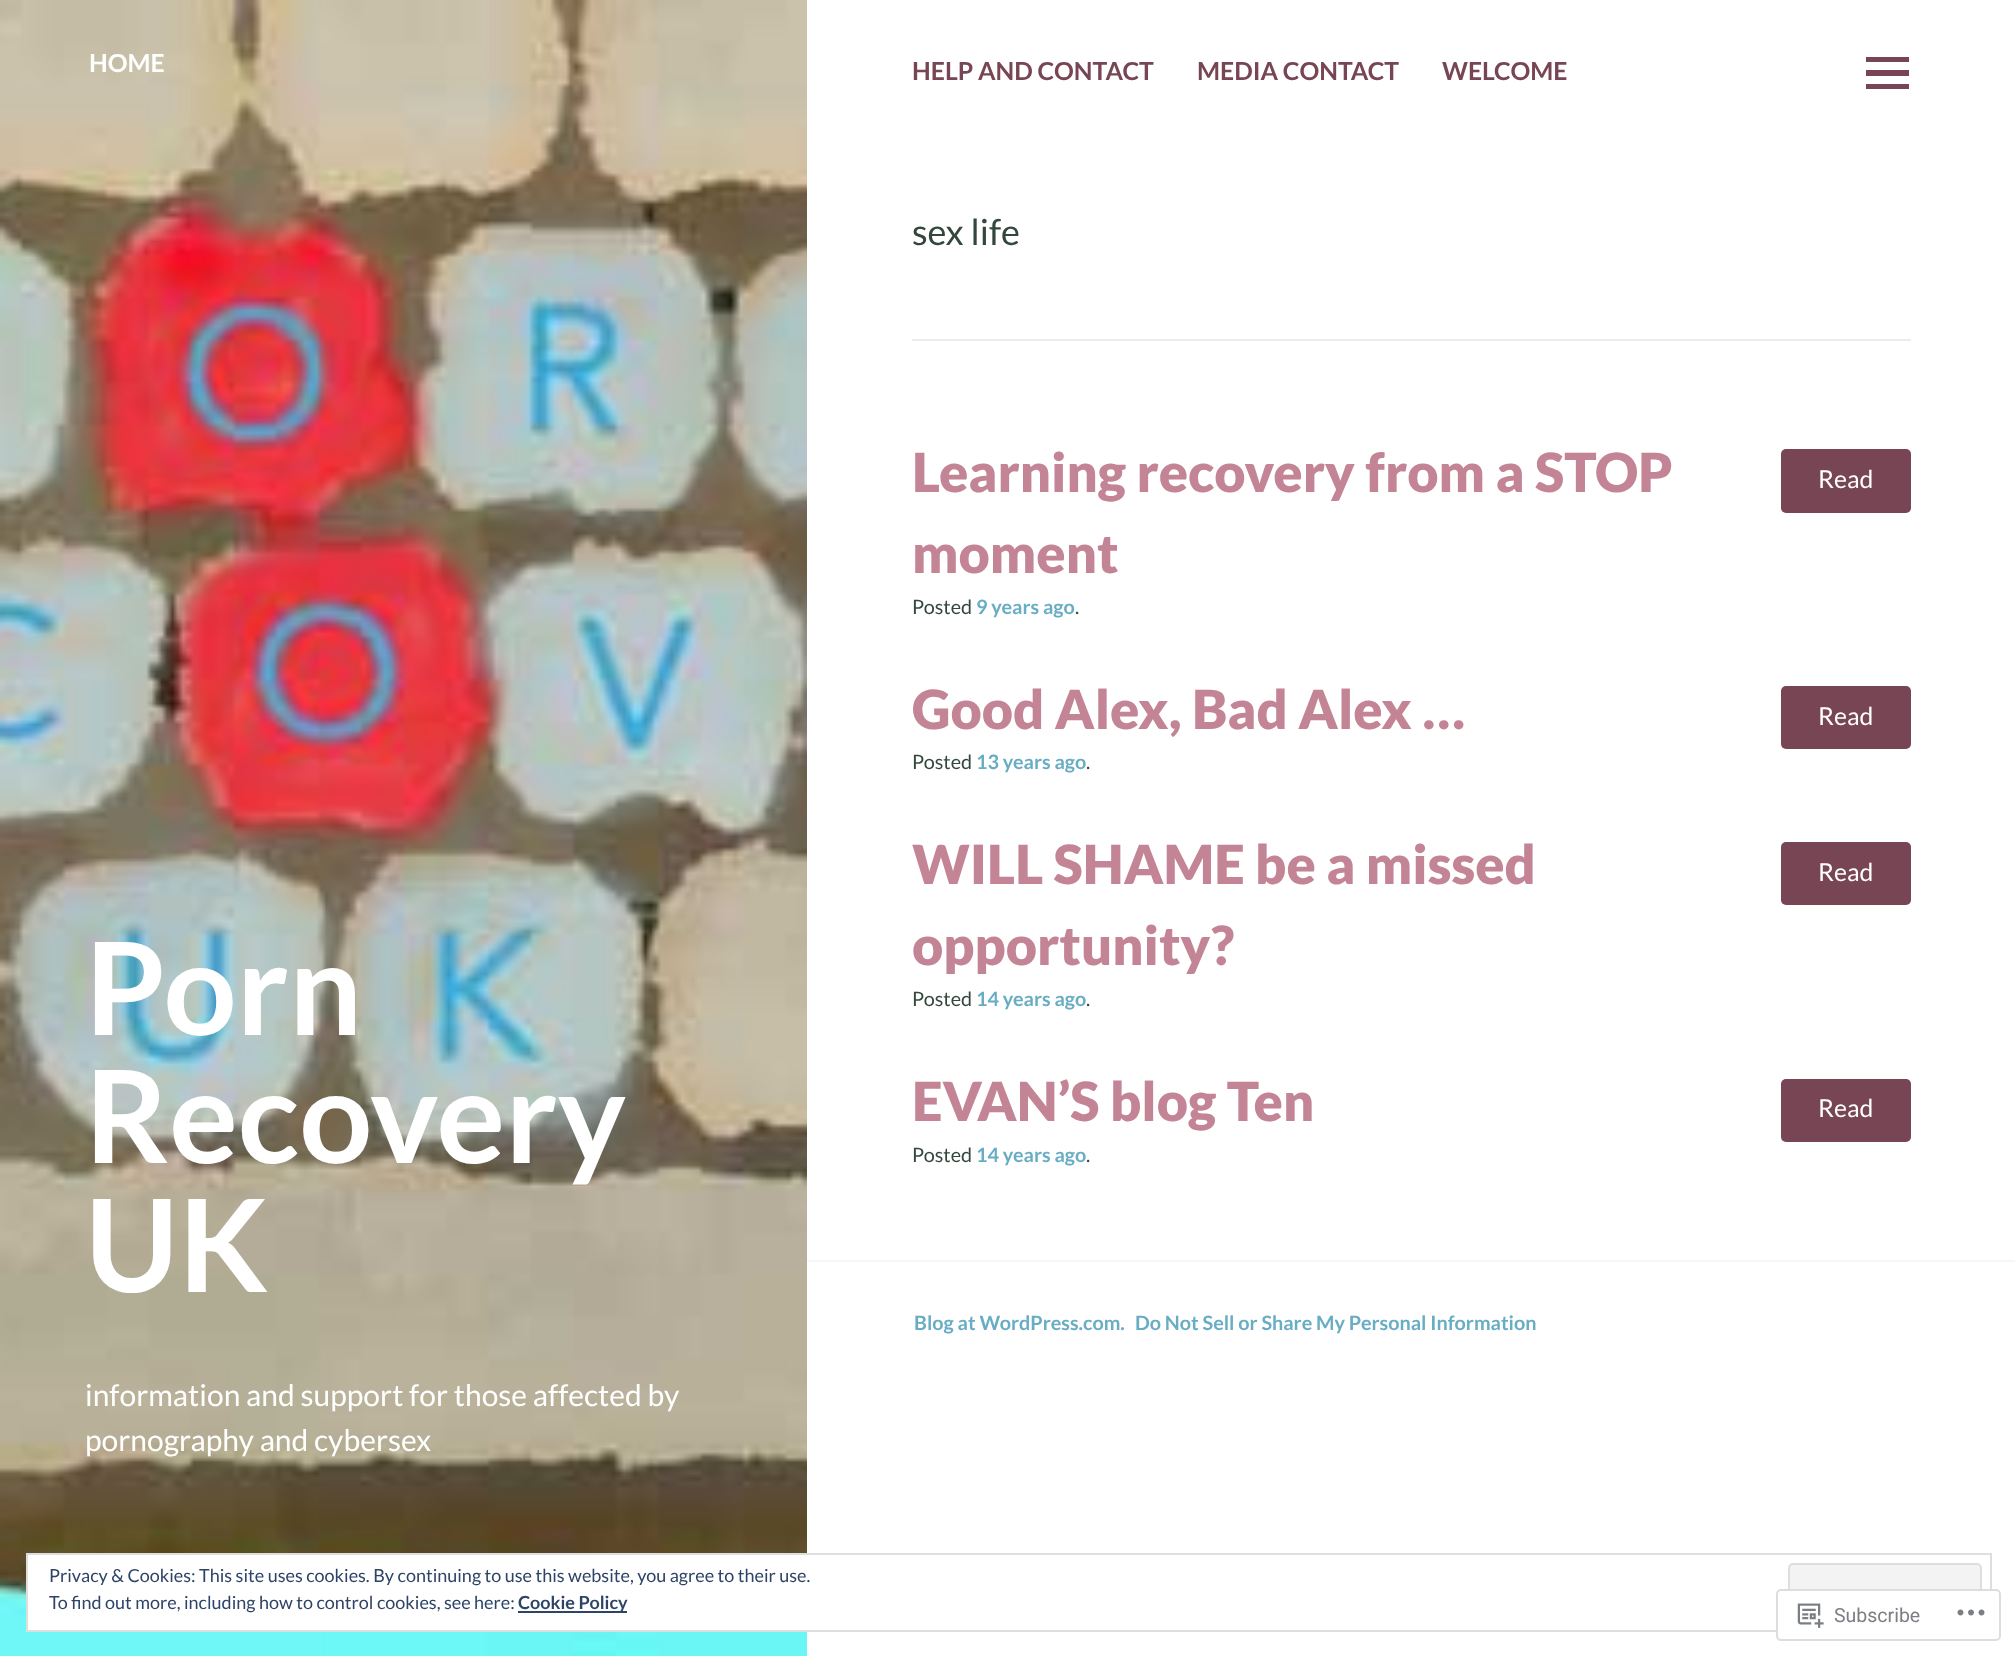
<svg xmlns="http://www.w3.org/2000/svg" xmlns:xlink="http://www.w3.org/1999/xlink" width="2015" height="1656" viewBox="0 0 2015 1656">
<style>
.cls-1{font:bold 24.75px Lato;fill:#ffffff}
.cls-2{font:bold 24.75px Lato;fill:#774553}
.cls-3{font:36px Lato;fill:#33473d}
.cls-4{font:900 54px Lato;fill:#c38596}
.cls-5{font:24.75px Lato;fill:#ffffff}
.cls-6{font:19.8px Lato;fill:#33473d}
.cls-7{font:bold 19.8px Lato;fill:#68adc3}
.cls-8{font:bold 128.5px Lato;fill:#ffffff}
.cls-9{font:30px Lato;fill:#ffffff}
.cls-10{font:18px Lato;fill:#2e4467}
.cls-11{font:bold 18px Lato;fill:#2e4467}
.cls-12{font:19.5px Roboto;fill:#7b7f84}
</style>
<rect width="100%" height="100%" fill="#ffffff"/>
<path fill="#774553" d="M1866 89V84H1909V89ZM1866 57H1909V62H1866ZM1866 76V70H1909V76Z"/>
<rect fill="#ebedec" x="912" y="339" width="999" height="2"/>
<rect fill="#774553" x="1781" y="449" width="130" height="64" rx="5"/>
<rect fill="#774553" x="1781" y="686" width="130" height="63" rx="5"/>
<rect fill="#774553" x="1781" y="842" width="130" height="63" rx="5"/>
<rect fill="#774553" x="1781" y="1079" width="130" height="63" rx="5"/>
<image xlink:href="image0.png" x="0" y="0" width="807" height="1656"/>
<rect fill="#f5f6f5" x="807" y="1260" width="1208" height="2"/>
<rect fill="#ffffff" x="28" y="1555" width="779" height="75"/>
<rect fill="none" stroke="#dedede" stroke-width="2" x="27" y="1554" width="1964" height="77"/>
<rect fill="#f3f3f3" stroke="#dedede" stroke-width="2" x="1789" y="1564" width="192" height="57" rx="4"/>
<rect fill="#2e4467" x="518" y="1611" width="109" height="2"/>
<rect fill="#ffffff" fill-opacity="0.98" x="1776" y="1589" width="225" height="52" rx="5"/>
<rect fill="none" stroke="#dcdcde" stroke-opacity="0.98" stroke-width="2" x="1777" y="1590" width="223" height="50" rx="4"/>
<image xlink:href="image1.png" x="1797" y="1603" width="27" height="25"/>
<image xlink:href="image2.png" x="1957" y="1609" width="28" height="7"/>
<text class="cls-1" x="89" y="72">HOME</text>
<text class="cls-2" x="912" y="80">HELP AND CONTACT</text>
<text class="cls-2" x="1197" y="80">MEDIA CONTACT</text>
<text class="cls-2" x="1442" y="80">WELCOME</text>
<text class="cls-3" x="912" y="245">sex life</text>
<text class="cls-4"><tspan x="912" y="492">Learning recovery from a STOP</tspan><tspan x="912" y="573">moment</tspan></text>
<text class="cls-5" x="1818" y="488">Read</text>
<text class="cls-6" x="912" y="614">Posted</text>
<text class="cls-7" x="976" y="614">9 years ago</text>
<text class="cls-6" x="1075" y="614">.</text>
<text class="cls-4" x="912" y="729">Good Alex, Bad Alex …</text>
<text class="cls-5" x="1818" y="725">Read</text>
<text class="cls-6" x="912" y="769">Posted</text>
<text class="cls-7" x="976" y="769">13 years ago</text>
<text class="cls-6" x="1086" y="769">.</text>
<text class="cls-4"><tspan x="912" y="884">WILL SHAME be a missed</tspan><tspan x="912" y="965">opportunity?</tspan></text>
<text class="cls-5" x="1818" y="881">Read</text>
<text class="cls-6" x="912" y="1006">Posted</text>
<text class="cls-7" x="976" y="1006">14 years ago</text>
<text class="cls-6" x="1086" y="1006">.</text>
<text class="cls-4" x="912" y="1121">EVAN’S blog Ten</text>
<text class="cls-5" x="1818" y="1117">Read</text>
<text class="cls-6" x="912" y="1162">Posted</text>
<text class="cls-7" x="976" y="1162">14 years ago</text>
<text class="cls-6" x="1086" y="1162">.</text>
<text class="cls-8"><tspan x="85" y="1035">Porn</tspan><tspan x="85" y="1163">Recovery</tspan><tspan x="85" y="1292">UK</tspan></text>
<text class="cls-9"><tspan x="85" y="1406">information and support for those affected by</tspan><tspan x="85" y="1451">pornography and cybersex</tspan></text>
<text class="cls-7" x="914" y="1330">Blog at WordPress.com.</text>
<text class="cls-7" x="1135" y="1330">Do Not Sell or Share My Personal Information</text>
<text class="cls-10"><tspan x="49" y="1582">Privacy &amp; Cookies: This site uses cookies. By continuing to use this website, you agree to their use.</tspan><tspan x="49" y="1609">To find out more, including how to control cookies, see here:</tspan></text>
<text class="cls-11" x="518" y="1609">Cookie Policy</text>
<text class="cls-12" x="1834" y="1622">Subscribe</text>
</svg>
